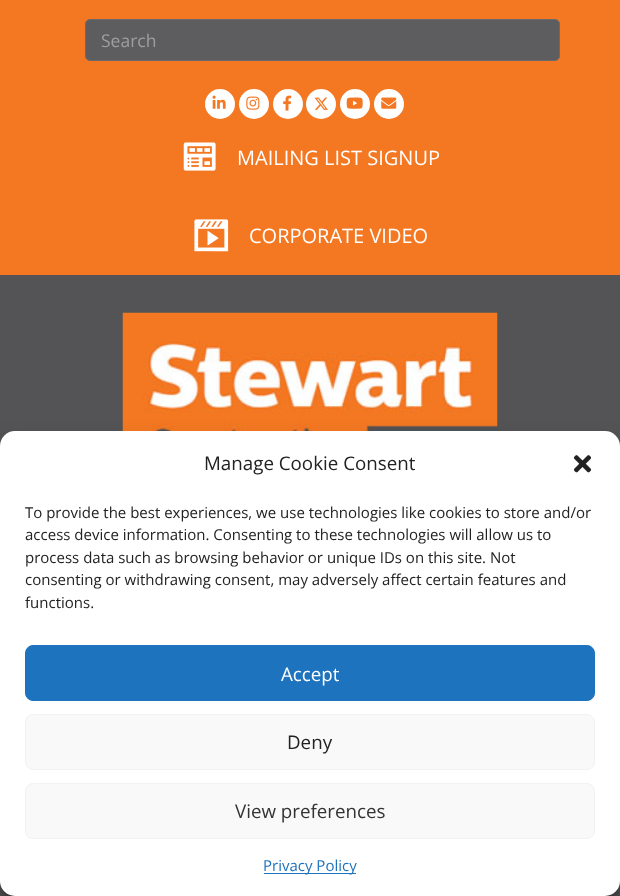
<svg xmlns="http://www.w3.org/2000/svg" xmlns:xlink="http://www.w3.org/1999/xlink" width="620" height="896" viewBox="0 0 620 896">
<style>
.cls-1{font:17.5px Open Sans;fill:#9e9e9f}
.cls-2{font:20px Open Sans;fill:#ffffff}
.cls-3{font:18.75px Open Sans;fill:#222222}
.cls-4{font:15px Open Sans;fill:#222222}
.cls-5{font:18.75px Open Sans;fill:#ffffff}
.cls-6{font:18.75px Open Sans;fill:#333333}
.cls-7{font:15px Open Sans;fill:#1e73be}
</style>
<rect width="100%" height="100%" fill="#545456"/>
<rect fill="#f47721" x="0" y="0" width="620" height="275"/>
<rect fill="#5d5d5f" stroke="#6a6a6c" x="85.5" y="19.5" width="474" height="41" rx="4.5"/>
<circle fill="#ffffff" cx="220" cy="104" r="15"/>
<image xlink:href="image0.png" x="212" y="95" width="14" height="14"/>
<circle fill="#ffffff" cx="254" cy="104" r="15"/>
<image xlink:href="image1.png" x="246" y="96" width="14" height="14"/>
<circle fill="#ffffff" cx="288" cy="104" r="15"/>
<image xlink:href="image2.png" x="283" y="95" width="9" height="16"/>
<circle fill="#ffffff" cx="321" cy="104" r="15"/>
<image xlink:href="image3.png" x="314" y="97" width="14" height="13"/>
<circle fill="#ffffff" cx="355" cy="104" r="15"/>
<image xlink:href="image4.png" x="346" y="97" width="17" height="12"/>
<circle fill="#ffffff" cx="389" cy="104" r="15"/>
<image xlink:href="image5.png" x="381" y="97" width="16" height="12"/>
<image xlink:href="image6.png" x="183" y="142" width="33" height="29"/>
<image xlink:href="image7.png" x="194" y="219" width="35" height="33"/>
<image xlink:href="image8.png" x="122" y="312" width="376" height="119"/>
<rect fill="#000000" fill-opacity="0.23" filter="blur(4px)" x="0" y="439" width="620" height="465" rx="15"/>
<rect fill="#000000" fill-opacity="0.19" filter="blur(12.5px)" x="0" y="444" width="620" height="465" rx="15"/>
<rect fill="#ffffff" x="0" y="431" width="620" height="465" rx="15"/>
<image xlink:href="image9.png" x="573" y="455" width="19" height="18"/>
<rect fill="#1e73be" stroke="#1e73be" x="25.5" y="645.5" width="569" height="55" rx="7.5"/>
<rect fill="#f9f9f9" stroke="#f2f2f2" x="25.5" y="714.5" width="569" height="55" rx="7.5"/>
<rect fill="#f9f9f9" stroke="#f2f2f2" x="25.5" y="783.5" width="569" height="55" rx="7.5"/>
<rect fill="#1e73be" x="264" y="873" width="92" height="1"/>
<text class="cls-1" x="101" y="47">Search</text>
<text class="cls-2" x="237" y="165">MAILING LIST SIGNUP</text>
<text class="cls-2" x="249" y="243">CORPORATE VIDEO</text>
<text class="cls-3" x="204" y="470">Manage Cookie Consent</text>
<text class="cls-4"><tspan x="25" y="518">To provide the best experiences, we use technologies like cookies to store and/or</tspan><tspan x="25" y="540">access device information. Consenting to these technologies will allow us to</tspan><tspan x="25" y="563">process data such as browsing behavior or unique IDs on this site. Not</tspan><tspan x="25" y="585">consenting or withdrawing consent, may adversely affect certain features and</tspan><tspan x="25" y="608">functions.</tspan></text>
<text class="cls-5" x="281" y="681">Accept</text>
<text class="cls-3" x="287" y="749">Deny</text>
<text class="cls-6" x="235" y="818">View preferences</text>
<text class="cls-7" x="263" y="871">Privacy Policy</text>
</svg>
